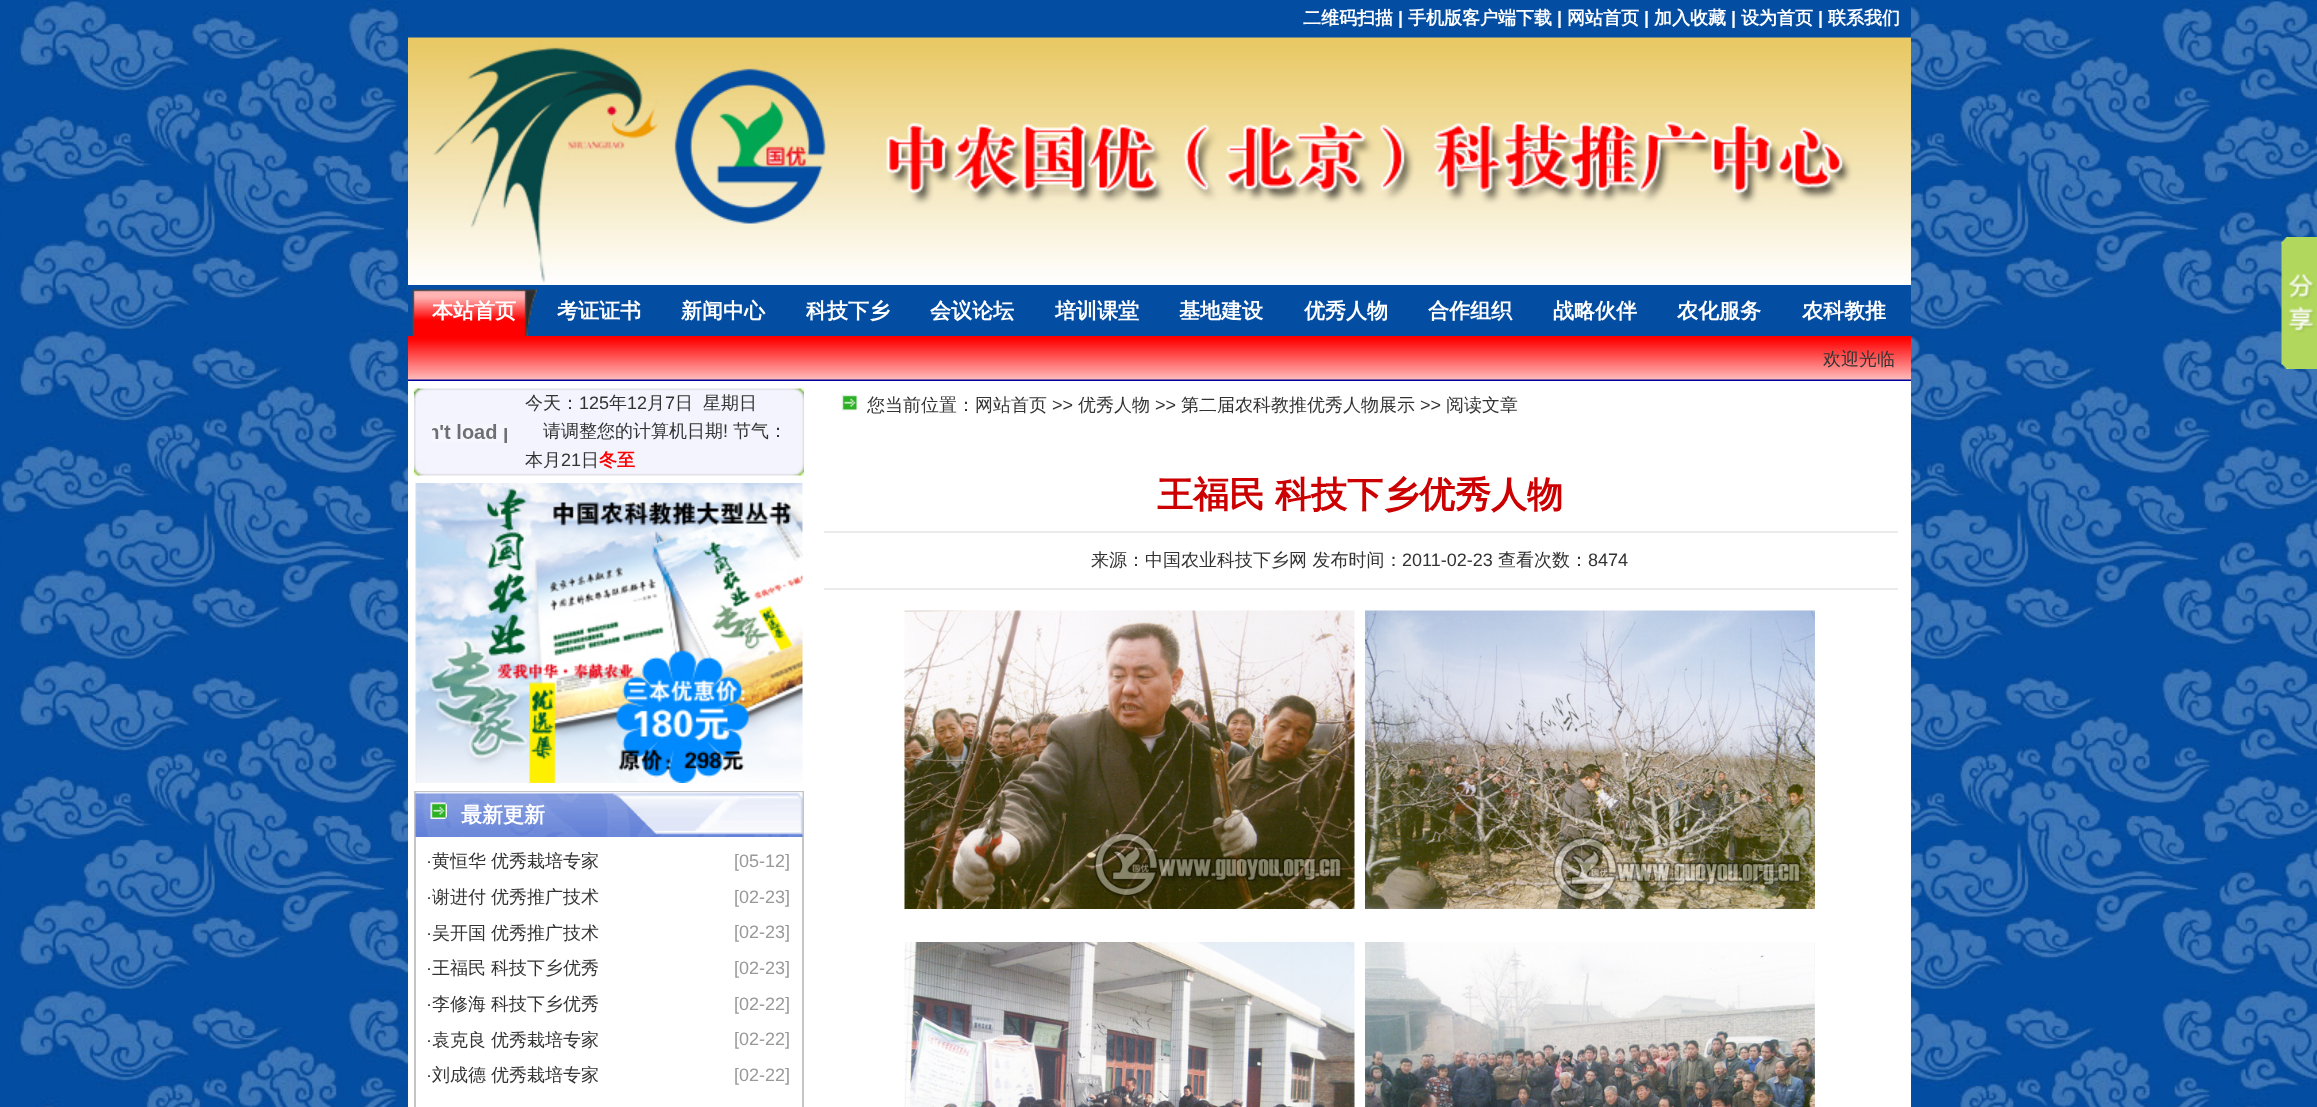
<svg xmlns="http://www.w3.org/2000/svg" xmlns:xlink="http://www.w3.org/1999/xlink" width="2317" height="1107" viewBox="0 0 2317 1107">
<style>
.cls-1{font:bold 18px WenQuanYi Zen Hei;fill:#ffffff}
.cls-2{font:bold 18px Liberation Sans;fill:#ffffff}
.cls-3{font:bold 21px WenQuanYi Zen Hei;fill:#ffffff}
.cls-4{font:500 18px WenQuanYi Zen Hei;fill:#333333}
.cls-5{font:18px Liberation Sans;fill:#333333}
.cls-6{font:bold 18px WenQuanYi Zen Hei;fill:#ff0000}
.cls-7{font:18px Liberation Sans;fill:#999999}
.cls-8{font:bold 36px WenQuanYi Zen Hei;fill:#cc0000}
</style>
<rect width="100%" height="100%" fill="#ffffff"/>
<image xlink:href="image0.png" x="0" y="0" width="2317" height="1107"/>
<rect fill="#034da2" x="408" y="0" width="1503" height="38"/>
<image xlink:href="image1.png" x="408" y="37" width="1503" height="248"/>
<rect fill="#034da2" x="408" y="285" width="1503" height="51"/>
<image xlink:href="image2.png" x="412" y="289" width="125" height="47"/>
<image xlink:href="image3.png" x="2281" y="237" width="36" height="132"/>
<image xlink:href="image4.png" x="408" y="336" width="1503" height="45"/>
<rect fill="#ffffff" x="408" y="381" width="1503" height="726"/>
<image xlink:href="image5.png" x="414" y="388" width="390" height="88"/>
<image xlink:href="image6.png" x="432" y="424" width="75" height="19"/>
<image xlink:href="image7.png" x="415" y="483" width="388" height="300"/>
<rect fill="none" stroke="#c5c5c5" stroke-width="2" x="415" y="792" width="388" height="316"/>
<image xlink:href="image8.png" x="415" y="792" width="388" height="45"/>
<image xlink:href="image9.png" x="430" y="802" width="17" height="17"/>
<image xlink:href="image10.png" x="841" y="394" width="17" height="17"/>
<rect fill="#ebebeb" x="824" y="531" width="1074" height="2"/>
<rect fill="#ebebeb" x="824" y="588" width="1074" height="2"/>
<image xlink:href="image11.png" x="904" y="610" width="451" height="299"/>
<image xlink:href="image12.png" x="1365" y="610" width="450" height="299"/>
<image xlink:href="image13.png" x="904" y="942" width="451" height="165"/>
<image xlink:href="image14.png" x="1365" y="942" width="450" height="165"/>
<text class="cls-1" x="1303" y="24">二维码扫描</text>
<text class="cls-2" x="1398" y="24">|</text>
<text class="cls-1" x="1408" y="24">手机版客户端下载</text>
<text class="cls-2" x="1557" y="24">|</text>
<text class="cls-1" x="1567" y="24">网站首页</text>
<text class="cls-2" x="1644" y="24">|</text>
<text class="cls-1" x="1654" y="24">加入收藏</text>
<text class="cls-2" x="1731" y="24">|</text>
<text class="cls-1" x="1741" y="24">设为首页</text>
<text class="cls-2" x="1818" y="24">|</text>
<text class="cls-1" x="1828" y="24">联系我们</text>
<text class="cls-3" x="432" y="318">本站首页</text>
<text class="cls-3" x="557" y="318">考证证书</text>
<text class="cls-3" x="681" y="318">新闻中心</text>
<text class="cls-3" x="806" y="318">科技下乡</text>
<text class="cls-3" x="930" y="318">会议论坛</text>
<text class="cls-3" x="1055" y="318">培训课堂</text>
<text class="cls-3" x="1179" y="318">基地建设</text>
<text class="cls-3" x="1304" y="318">优秀人物</text>
<text class="cls-3" x="1428" y="318">合作组织</text>
<text class="cls-3" x="1553" y="318">战略伙伴</text>
<text class="cls-3" x="1677" y="318">农化服务</text>
<text class="cls-3" x="1802" y="318">农科教推</text>
<text class="cls-4" x="1823" y="365">欢迎光临</text>
<text class="cls-4" x="525" y="409">今天：</text>
<text class="cls-5" x="579" y="409">125</text>
<text class="cls-4" x="609" y="409">年</text>
<text class="cls-5" x="627" y="409">12</text>
<text class="cls-4" x="647" y="409">月</text>
<text class="cls-5" x="665" y="409">7</text>
<text class="cls-4" x="675" y="409">日</text>
<text class="cls-4" x="703" y="409">星期日</text>
<text class="cls-4" x="543" y="437">请调整您的计算机日期</text>
<text class="cls-5" x="723" y="437">!</text>
<text class="cls-4" x="733" y="437">节气：</text>
<text class="cls-4" x="525" y="466">本月</text>
<text class="cls-5" x="561" y="466">21</text>
<text class="cls-4" x="581" y="466">日</text>
<text class="cls-6" x="599" y="466">冬至</text>
<text class="cls-3" x="461" y="822">最新更新</text>
<text class="cls-5" x="426" y="867">·</text>
<text class="cls-4" x="432" y="867">黄恒华</text>
<text class="cls-4" x="491" y="867">优秀栽培专家</text>
<text class="cls-7" x="734" y="867">[05-12]</text>
<text class="cls-5" x="426" y="903">·</text>
<text class="cls-4" x="432" y="903">谢进付</text>
<text class="cls-4" x="491" y="903">优秀推广技术</text>
<text class="cls-7" x="734" y="903">[02-23]</text>
<text class="cls-5" x="426" y="939">·</text>
<text class="cls-4" x="432" y="939">吴开国</text>
<text class="cls-4" x="491" y="939">优秀推广技术</text>
<text class="cls-7" x="734" y="938">[02-23]</text>
<text class="cls-5" x="426" y="974">·</text>
<text class="cls-4" x="432" y="974">王福民</text>
<text class="cls-4" x="491" y="974">科技下乡优秀</text>
<text class="cls-7" x="734" y="974">[02-23]</text>
<text class="cls-5" x="426" y="1010">·</text>
<text class="cls-4" x="432" y="1010">李修海</text>
<text class="cls-4" x="491" y="1010">科技下乡优秀</text>
<text class="cls-7" x="734" y="1010">[02-22]</text>
<text class="cls-5" x="426" y="1046">·</text>
<text class="cls-4" x="432" y="1046">袁克良</text>
<text class="cls-4" x="491" y="1046">优秀栽培专家</text>
<text class="cls-7" x="734" y="1045">[02-22]</text>
<text class="cls-5" x="426" y="1081">·</text>
<text class="cls-4" x="432" y="1081">刘成德</text>
<text class="cls-4" x="491" y="1081">优秀栽培专家</text>
<text class="cls-7" x="734" y="1081">[02-22]</text>
<text class="cls-4" x="867" y="411">您当前位置：网站首页</text>
<text class="cls-5" x="1052" y="411">&gt;&gt;</text>
<text class="cls-4" x="1078" y="411">优秀人物</text>
<text class="cls-5" x="1155" y="411">&gt;&gt;</text>
<text class="cls-4" x="1181" y="411">第二届农科教推优秀人物展示</text>
<text class="cls-5" x="1420" y="411">&gt;&gt;</text>
<text class="cls-4" x="1446" y="411">阅读文章</text>
<text class="cls-8" x="1157" y="507">王福民</text>
<text class="cls-8" x="1275" y="507">科技下乡优秀人物</text>
<text class="cls-4" x="1091" y="566">来源：中国农业科技下乡网 发布时间：</text>
<text class="cls-5" x="1402" y="566">2011-02-23</text>
<text class="cls-4" x="1498" y="566">查看次数：</text>
<text class="cls-5" x="1588" y="566">8474</text>
</svg>
